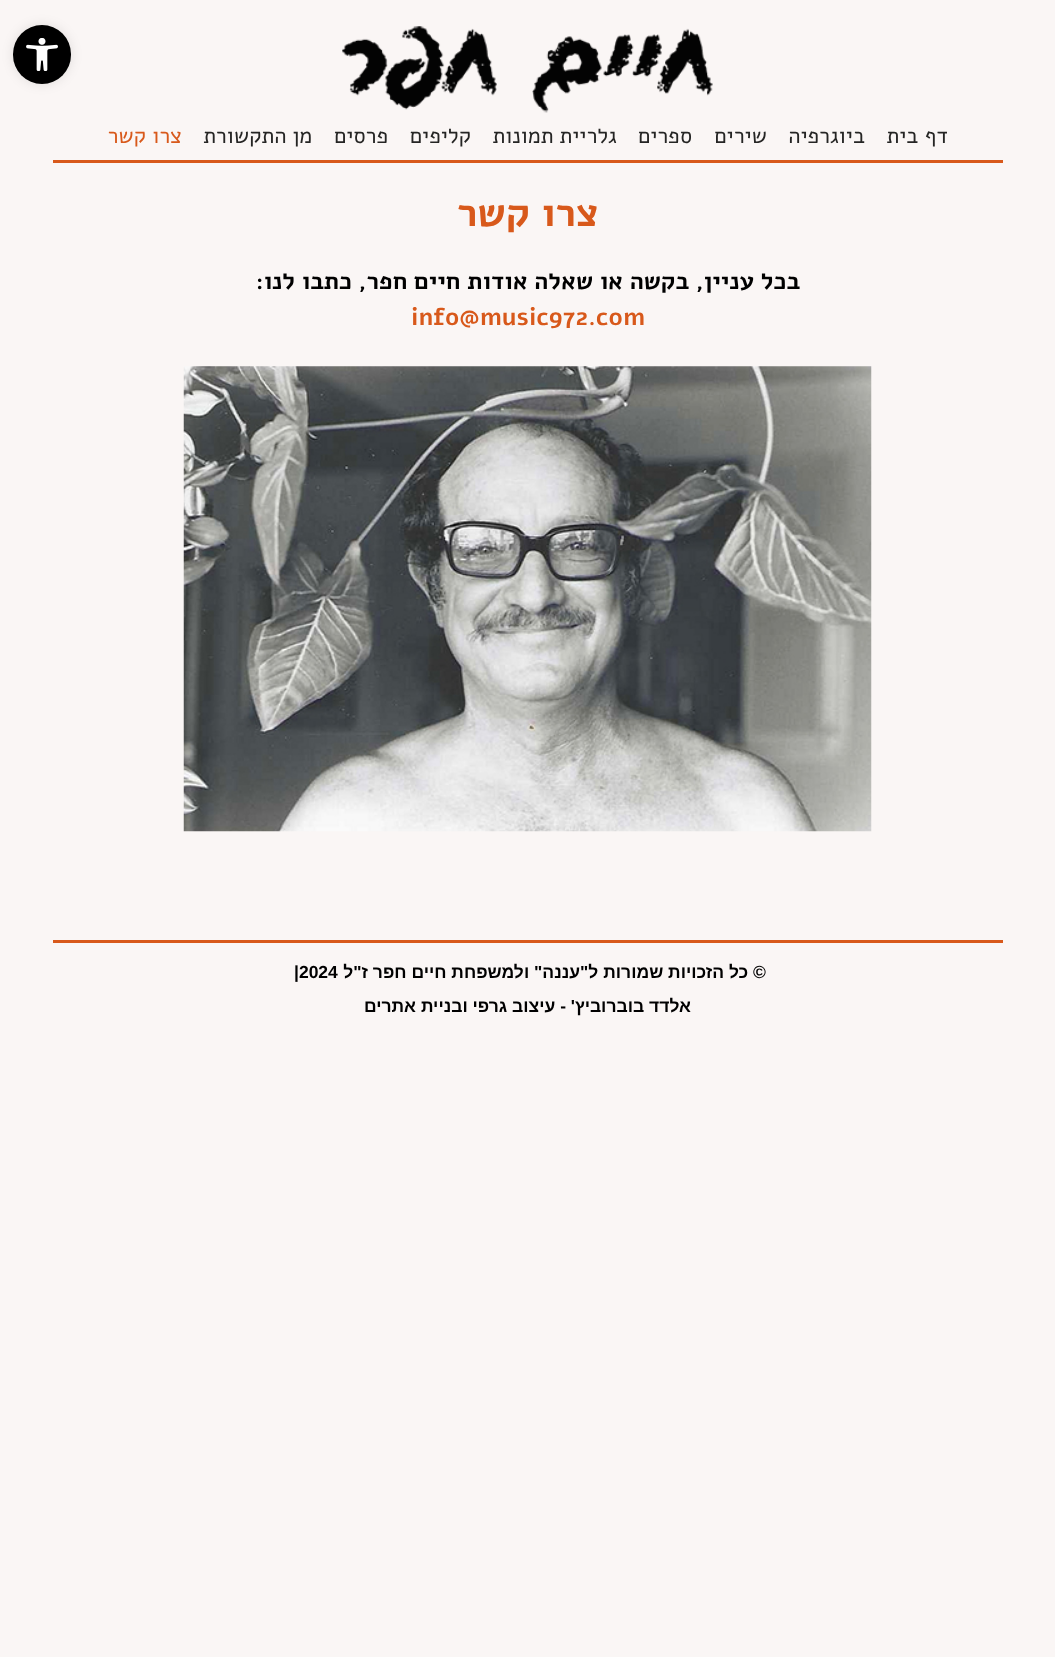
<svg xmlns="http://www.w3.org/2000/svg" xmlns:xlink="http://www.w3.org/1999/xlink" width="1055" height="1657" viewBox="0 0 1055 1657">
<style>
.cls-1{font:22px Alef;direction:rtl;fill:#252524}
.cls-2{font:22px Alef;direction:rtl;fill:#d8591b}
.cls-3{font:bold 40px Alef;direction:rtl;fill:#d8591b}
.cls-4{font:bold 24px Alef;direction:rtl;fill:#000000}
.cls-5{font:bold 24px Alef;fill:#d8591b}
.cls-6{font:bold 17.5px Liberation Sans;direction:rtl;fill:#000000}
.cls-7{font:bold 17.5px Liberation Sans;fill:#000000}
</style>
<rect width="100%" height="100%" fill="#faf6f5"/>
<rect fill="#000000" fill-opacity="0.1" filter="blur(6px)" x="13" y="25" width="58" height="59" rx="29"/>
<rect fill="#000000" x="13" y="25" width="58" height="59" rx="29"/>
<image xlink:href="image0.png" x="26" y="38" width="32" height="33"/>
<rect fill="#d8591b" x="53" y="160" width="950" height="3"/>
<image xlink:href="image1.png" x="342" y="26" width="371" height="87"/>
<image xlink:href="image2.png" x="183" y="366" width="689" height="466"/>
<rect fill="#d8591b" x="53" y="940" width="950" height="3"/>
<text class="cls-1" x="948" y="143">דף בית</text>
<text class="cls-1" x="865" y="143">ביוגרפיה</text>
<text class="cls-1" x="767" y="143">שירים</text>
<text class="cls-1" x="692" y="143">ספרים</text>
<text class="cls-1" x="617" y="143">גלריית תמונות</text>
<text class="cls-1" x="471" y="143">קליפים</text>
<text class="cls-1" x="388" y="143">פרסים</text>
<text class="cls-1" x="312" y="143">מן התקשורת</text>
<text class="cls-2" x="182" y="143">צרו קשר</text>
<text class="cls-3" x="599" y="226">צרו קשר</text>
<text class="cls-4" x="800" y="289">בכל עניין, בקשה או שאלה אודות חיים חפר, כתבו לנו:</text>
<text class="cls-5" x="411" y="325">info@music972.com</text>
<text class="cls-6" x="766" y="978">© כל הזכויות שמורות ל"עננה" ולמשפחת חיים חפר ז"ל</text>
<text class="cls-7" x="294" y="978">|2024</text>
<text class="cls-6" x="691" y="1012">אלדד בוברוביץ' - עיצוב גרפי ובניית אתרים</text>
</svg>
